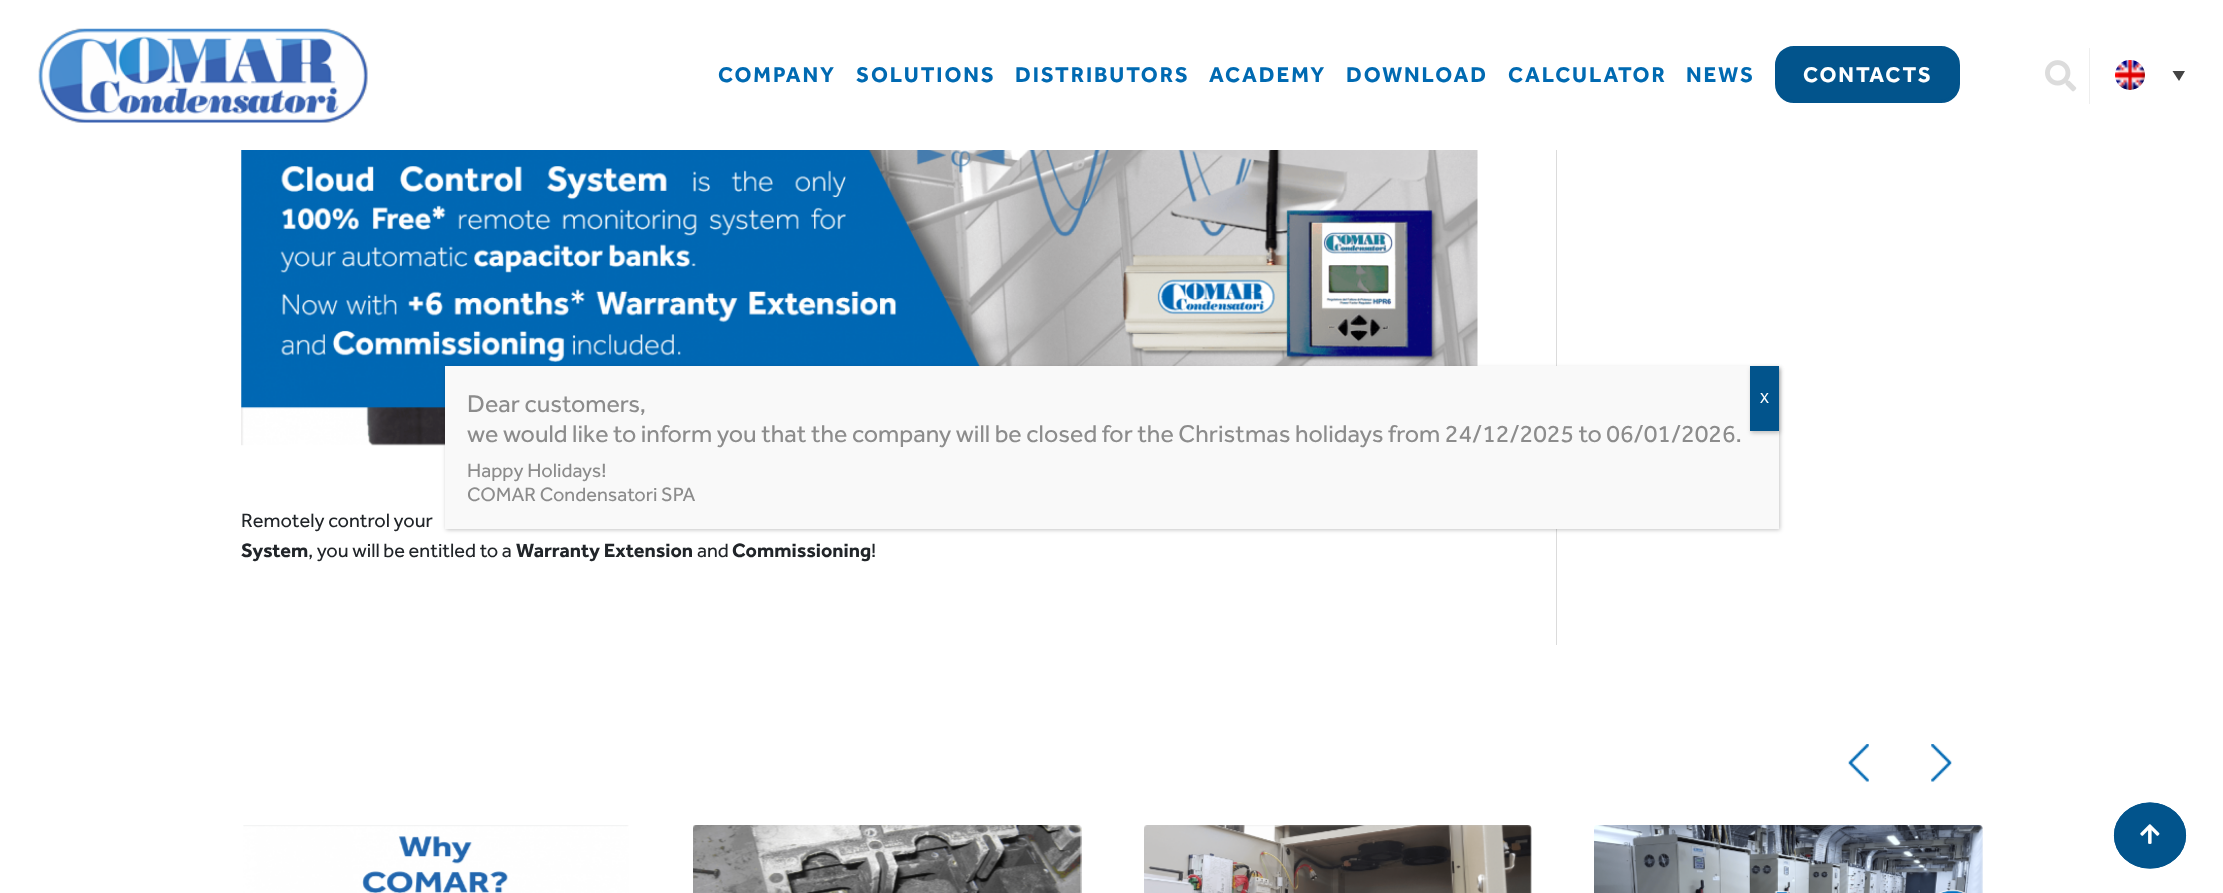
<svg xmlns="http://www.w3.org/2000/svg" xmlns:xlink="http://www.w3.org/1999/xlink" width="2223" height="893" viewBox="0 0 2223 893">
<style>
.cls-1{font:bold 22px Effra;letter-spacing:1.9px;fill:#006ab2}
.cls-2{font:bold 22px Effra;letter-spacing:1.9px;fill:#ffffff}
.cls-3{font:25px Effra;fill:#8c8c8c}
.cls-4{font:20px Effra;fill:#8c8c8c}
.cls-5{font:15px Effra;fill:#ffffff}
.cls-6{font:20px Effra;fill:#212529}
.cls-7{font:bold 20px Effra;fill:#212529}
</style>
<rect width="100%" height="100%" fill="#ffffff"/>
<image xlink:href="image0.png" x="38" y="28" width="330" height="95"/>
<rect fill="#02548c" stroke="#02548c" stroke-width="3" x="1776.5" y="47.5" width="182" height="54" rx="17.5"/>
<rect fill="#eeeeee" x="2089" y="48" width="1" height="56"/>
<image xlink:href="image1.png" x="2045" y="60" width="32" height="32"/>
<image xlink:href="image2.png" x="2115" y="60" width="30" height="30"/>
<path fill="#444444" d="M2172.5 71H2185L2179 81Z"/>
<image xlink:href="image3.png" x="241" y="150" width="1237" height="296"/>
<rect fill="#dbdbdb" x="1556" y="150" width="1" height="495"/>
<rect fill="#020202" fill-opacity="0.23" filter="blur(2px)" x="446" y="368" width="1334" height="162"/>
<rect fill="#f9f9f9" x="445" y="366" width="1334" height="163"/>
<rect fill="#020202" fill-opacity="0.23" filter="blur(2px)" x="1751" y="368" width="29" height="65"/>
<rect fill="#02548c" x="1750" y="366" width="29" height="65"/>
<image xlink:href="image4.png" x="1848" y="744" width="21" height="38"/>
<image xlink:href="image5.png" x="1931" y="744" width="21" height="38"/>
<image xlink:href="image6.png" x="243" y="825" width="386" height="68"/>
<image xlink:href="image7.png" x="693" y="825" width="389" height="68"/>
<image xlink:href="image8.png" x="1144" y="825" width="388" height="68"/>
<image xlink:href="image9.png" x="1594" y="825" width="389" height="68"/>
<ellipse fill="#02548c" cx="2150" cy="835.5" rx="36" ry="33"/>
<path fill="none" stroke="#02548c" stroke-width="1.2" d="M2150 803C2169.5 803 2185.5 817.5 2185.5 835.5C2185.5 853.5 2169.5 868 2150 868C2130.5 868 2114.5 853.5 2114.5 835.5C2114.5 817.5 2130.5 803 2150 803Z"/>
<image xlink:href="image10.png" x="2140" y="824" width="20" height="20"/>
<text class="cls-1" x="718" y="82">COMPANY</text>
<text class="cls-1" x="856" y="82">SOLUTIONS</text>
<text class="cls-1" x="1015" y="82">DISTRIBUTORS</text>
<text class="cls-1" x="1209" y="82">ACADEMY</text>
<text class="cls-1" x="1346" y="82">DOWNLOAD</text>
<text class="cls-1" x="1508" y="82">CALCULATOR</text>
<text class="cls-1" x="1686" y="82">NEWS</text>
<text class="cls-2" x="1803" y="82">CONTACTS</text>
<text class="cls-3"><tspan x="467" y="412">Dear customers,</tspan><tspan x="467" y="442">we would like to inform you that the company will be closed for the Christmas holidays from 24/12/2025 to 06/01/2026.</tspan></text>
<text class="cls-4"><tspan x="467" y="477">Happy Holidays!</tspan><tspan x="467" y="501">COMAR Condensatori SPA</tspan></text>
<text class="cls-5" x="1760" y="403">X</text>
<text class="cls-6" x="241" y="527">Remotely control your</text>
<text class="cls-7" x="241" y="557">System</text>
<text class="cls-6" x="308" y="557">, you will be entitled to a</text>
<text class="cls-7" x="516" y="557">Warranty Extension</text>
<text class="cls-6" x="697" y="557">and</text>
<text class="cls-7" x="732" y="557">Commissioning</text>
<text class="cls-6" x="871" y="557">!</text>
</svg>
